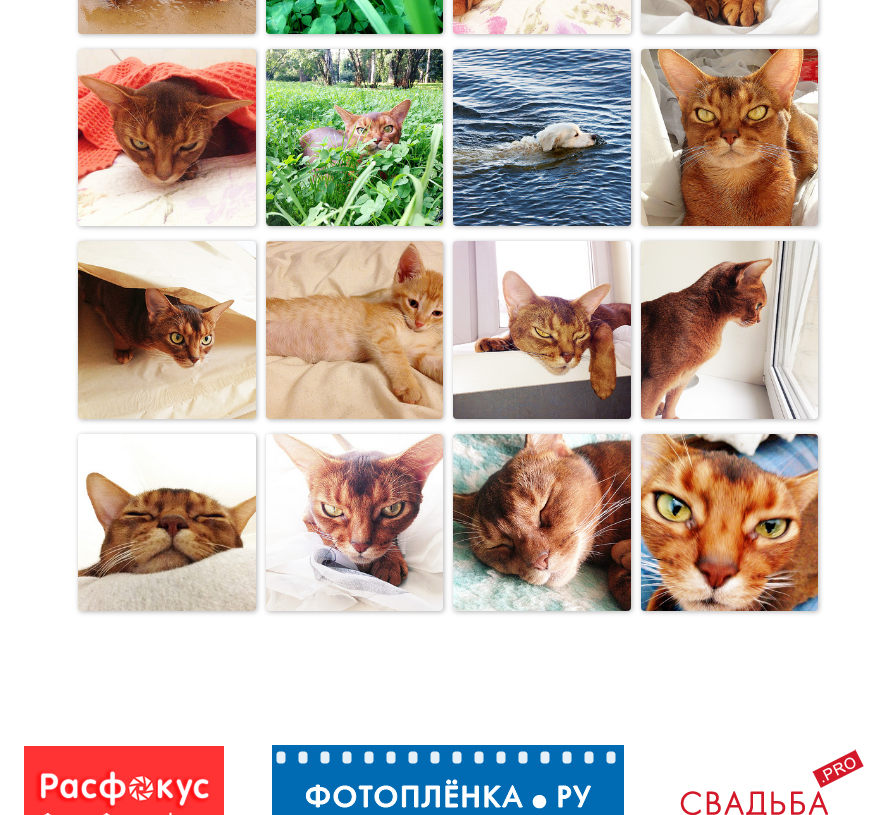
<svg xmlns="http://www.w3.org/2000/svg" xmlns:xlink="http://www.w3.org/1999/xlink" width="896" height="815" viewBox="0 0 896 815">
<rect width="100%" height="100%" fill="#ffffff"/>
<rect fill="#000000" fill-opacity="0.3" filter="blur(2.5px)" x="79" y="-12" width="178" height="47" rx="4"/>
<image xlink:href="image0.png" x="78" y="0" width="178" height="34"/>
<rect fill="#000000" fill-opacity="0.3" filter="blur(2.5px)" x="267" y="-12" width="177" height="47" rx="4"/>
<image xlink:href="image1.png" x="266" y="0" width="177" height="34"/>
<rect fill="#000000" fill-opacity="0.3" filter="blur(2.5px)" x="454" y="-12" width="178" height="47" rx="4"/>
<image xlink:href="image2.png" x="453" y="0" width="178" height="34"/>
<rect fill="#000000" fill-opacity="0.3" filter="blur(2.5px)" x="642" y="-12" width="177" height="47" rx="4"/>
<image xlink:href="image3.png" x="641" y="0" width="177" height="34"/>
<rect fill="#000000" fill-opacity="0.3" filter="blur(2.5px)" x="79" y="50" width="178" height="177" rx="4"/>
<image xlink:href="image4.png" x="78" y="49" width="178" height="177"/>
<rect fill="#000000" fill-opacity="0.3" filter="blur(2.5px)" x="267" y="50" width="177" height="177" rx="4"/>
<image xlink:href="image5.png" x="266" y="49" width="177" height="177"/>
<rect fill="#000000" fill-opacity="0.3" filter="blur(2.5px)" x="454" y="50" width="178" height="177" rx="4"/>
<image xlink:href="image6.png" x="453" y="49" width="178" height="177"/>
<rect fill="#000000" fill-opacity="0.3" filter="blur(2.5px)" x="642" y="50" width="177" height="177" rx="4"/>
<image xlink:href="image7.png" x="641" y="49" width="177" height="177"/>
<rect fill="#000000" fill-opacity="0.3" filter="blur(2.5px)" x="79" y="242" width="178" height="178" rx="4"/>
<image xlink:href="image8.png" x="78" y="241" width="178" height="178"/>
<rect fill="#000000" fill-opacity="0.3" filter="blur(2.5px)" x="267" y="242" width="177" height="178" rx="4"/>
<image xlink:href="image9.png" x="266" y="241" width="177" height="178"/>
<rect fill="#000000" fill-opacity="0.3" filter="blur(2.5px)" x="454" y="242" width="178" height="178" rx="4"/>
<image xlink:href="image10.png" x="453" y="241" width="178" height="178"/>
<rect fill="#000000" fill-opacity="0.3" filter="blur(2.5px)" x="642" y="242" width="177" height="178" rx="4"/>
<image xlink:href="image11.png" x="641" y="241" width="177" height="178"/>
<rect fill="#000000" fill-opacity="0.3" filter="blur(2.5px)" x="79" y="435" width="178" height="177" rx="4"/>
<image xlink:href="image12.png" x="78" y="434" width="178" height="177"/>
<rect fill="#000000" fill-opacity="0.3" filter="blur(2.5px)" x="267" y="435" width="177" height="177" rx="4"/>
<image xlink:href="image13.png" x="266" y="434" width="177" height="177"/>
<rect fill="#000000" fill-opacity="0.3" filter="blur(2.5px)" x="454" y="435" width="178" height="177" rx="4"/>
<image xlink:href="image14.png" x="453" y="434" width="178" height="177"/>
<rect fill="#000000" fill-opacity="0.3" filter="blur(2.5px)" x="642" y="435" width="177" height="177" rx="4"/>
<image xlink:href="image15.png" x="641" y="434" width="177" height="177"/>
<image xlink:href="image16.png" x="24" y="746" width="200" height="69"/>
<image xlink:href="image17.png" x="272" y="745" width="352" height="70"/>
<image xlink:href="image18.png" x="680" y="749" width="184" height="66"/>
</svg>
